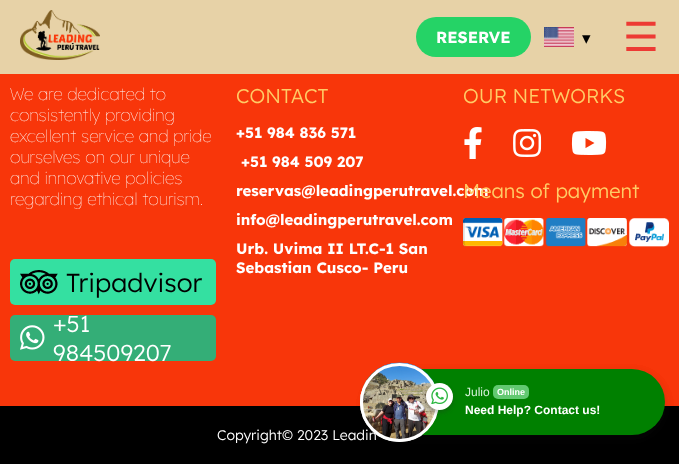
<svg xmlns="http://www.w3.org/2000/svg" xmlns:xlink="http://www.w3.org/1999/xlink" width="679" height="464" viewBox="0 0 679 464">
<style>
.cls-1{font:bold 16px Lexend;fill:#ffffff}
.cls-2{font:17px DejaVu Sans;fill:#000000}
.cls-3{font:40px DejaVu Sans;fill:#ed3a34}
.cls-4{font:100 17px Lexend;fill:#ffffff}
.cls-5{font:300 26px Lexend;fill:#000000}
.cls-6{font:300 23px Lexend;fill:#ffffff}
.cls-7{font:300 20px Lexend;fill:#ffcc66}
.cls-8{font:bold 15px Lexend;fill:#ffffff}
.cls-9{font:300 14px Lexend;fill:#ffffff}
.cls-10{font:bold 9px Liberation Sans;fill:#ffffff}
.cls-11{font:bold 12px Liberation Sans;fill:#ffffff}
.cls-12{font:12px Liberation Sans;fill:#d5f0d9}
</style>
<rect width="100%" height="100%" fill="#f8360a"/>
<rect fill="#e7d2a7" x="0" y="0" width="679" height="74"/>
<image xlink:href="image0.png" x="20" y="10" width="80" height="50"/>
<rect fill="#25d366" x="416" y="17" width="115" height="40" rx="20"/>
<image xlink:href="image1.png" x="544" y="27" width="30" height="20"/>
<rect fill="#34e0a1" x="10" y="259" width="206" height="46" rx="5"/>
<image xlink:href="image2.png" x="20" y="270" width="38" height="25"/>
<rect fill="#34ae77" x="10" y="315" width="206" height="46" rx="5"/>
<image xlink:href="image3.png" x="20" y="325" width="25" height="25"/>
<rect fill="#000000" x="0" y="406" width="679" height="58"/>
<rect fill="#202025" fill-opacity="0.09" filter="blur(4px)" x="364" y="372" width="302" height="68" rx="34"/>
<image xlink:href="image5.png" x="464" y="127" width="18" height="32"/>
<image xlink:href="image6.png" x="513" y="129" width="29" height="28"/>
<image xlink:href="image7.png" x="571" y="131" width="36" height="24"/>
<image xlink:href="image8.png" x="463" y="218" width="206" height="29"/>
<text class="cls-1" x="436" y="43">RESERVE</text>
<text class="cls-2" x="582" y="44">▾</text>
<text class="cls-3" x="623" y="51">☰</text>
<text class="cls-4"><tspan x="10" y="100">We are dedicated to</tspan><tspan x="10" y="121">consistently providing</tspan><tspan x="10" y="142">excellent service and pride</tspan><tspan x="10" y="163">ourselves on our unique</tspan><tspan x="10" y="184">and innovative policies</tspan><tspan x="10" y="205">regarding ethical tourism.</tspan></text>
<text class="cls-5" x="66" y="292">Tripadvisor</text>
<text class="cls-6"><tspan x="53" y="332">+51</tspan><tspan x="53" y="361">984509207</tspan></text>
<text class="cls-7" x="236" y="103">CONTACT</text>
<text class="cls-8" x="236" y="138">+51 984 836 571</text>
<text class="cls-8" x="241" y="167">+51 984 509 207</text>
<text class="cls-8"><tspan x="236" y="196">reservas@leadingperutravel.com</tspan><tspan x="236" y="225">info@leadingperutravel.com</tspan><tspan x="236" y="254">Urb. Uvima II LT.C-1 San</tspan><tspan x="236" y="273">Sebastian Cusco- Peru</tspan></text>
<text class="cls-7" x="463" y="103">OUR NETWORKS</text>
<text class="cls-7" x="463" y="198">Means of payment</text>
<text class="cls-9" x="217" y="440">Copyright© 2023 Leadin</text>
<image xlink:href="image4.png" x="363" y="362" width="59" height="80"/>
<circle fill="none" stroke="#ffffff" stroke-width="3" cx="399.5" cy="402.5" r="38"/>
<rect fill="#202025" fill-opacity="0.09" filter="blur(4px)" x="364" y="372" width="302" height="68" rx="34"/>
<rect fill="#008000" x="365" y="369" width="300" height="66" rx="33"/>
<rect fill="#62c971" x="493" y="385" width="36" height="14" rx="5"/>
<text class="cls-10" x="497" y="395">Online</text>
<text class="cls-11" x="465" y="414">Need Help? Contact us!</text>
<text class="cls-12" x="465" y="396">Julio</text>
<image xlink:href="image9.png" x="363" y="362" width="73" height="80"/>
<circle fill="none" stroke="#ffffff" stroke-width="3" cx="399.5" cy="402.5" r="38"/>
<rect fill="#272626" fill-opacity="0.26" filter="blur(2px)" x="426" y="386" width="27" height="27" rx="13.5"/>
<circle fill="#ffffff" cx="439.5" cy="396.5" r="13.5"/>
<image xlink:href="image10.png" x="431" y="387" width="17" height="17"/>
</svg>
